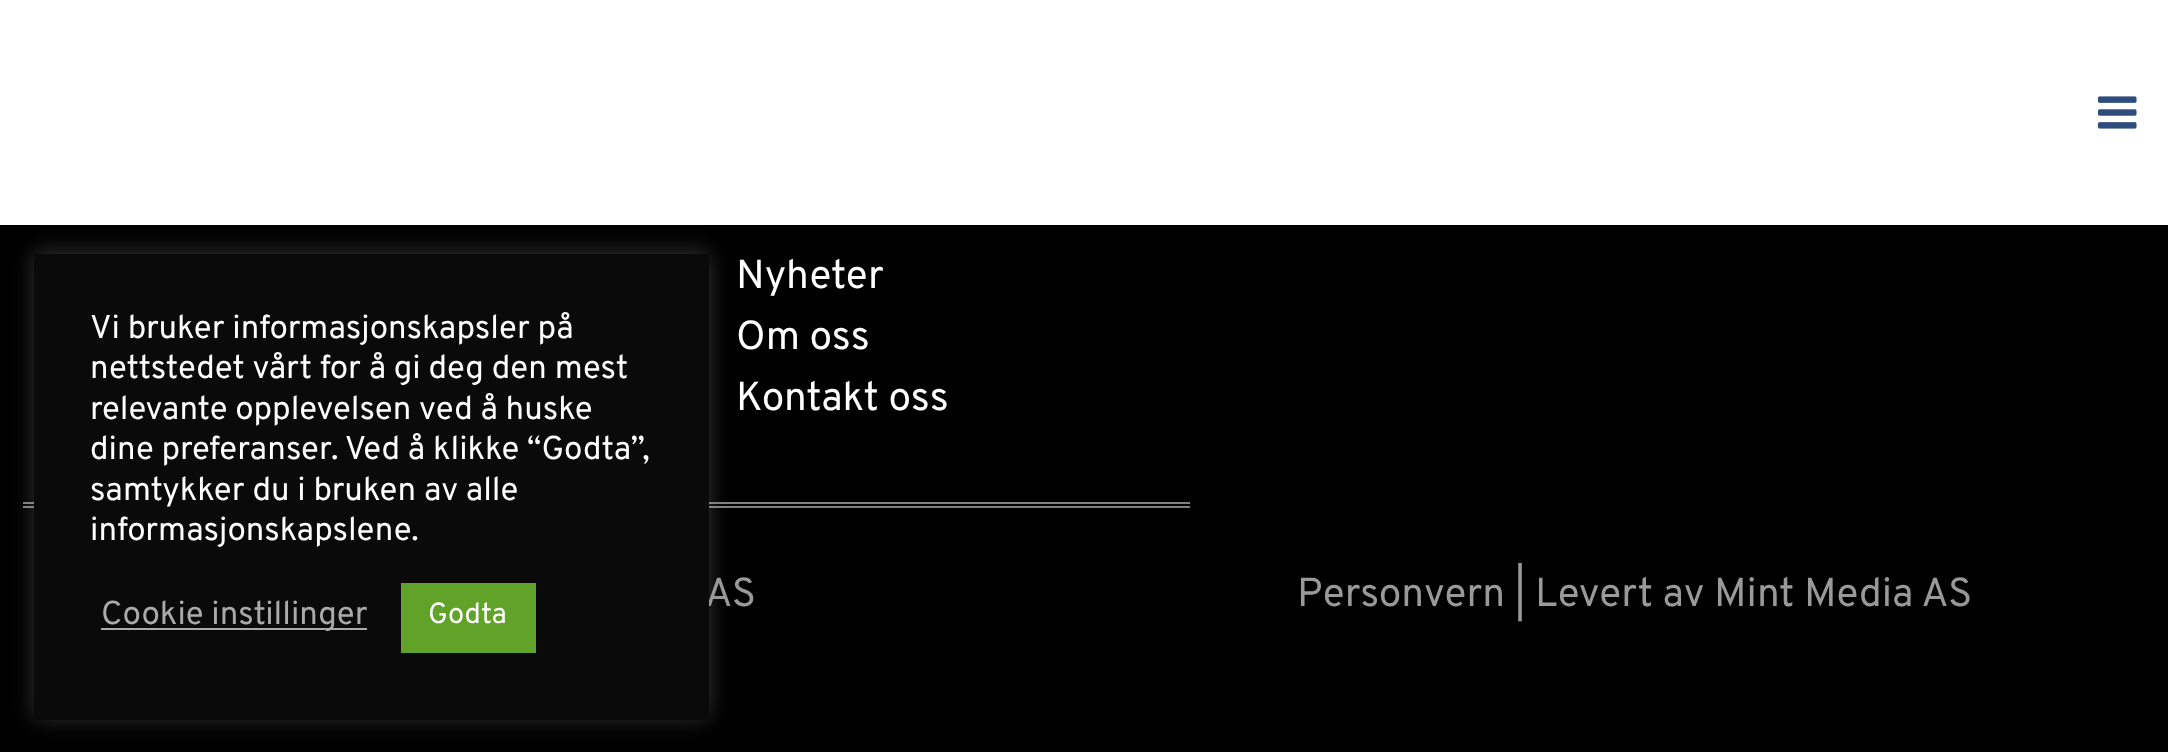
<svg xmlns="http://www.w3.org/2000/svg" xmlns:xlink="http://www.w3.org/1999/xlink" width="2168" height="752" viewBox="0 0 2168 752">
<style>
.cls-1{font:40.5px Overpass;fill:#ffffff}
.cls-2{font:40.5px Overpass;fill:#999999}
.cls-3{font:29px Overpass;fill:#ffffff}
.cls-4{font:33px Overpass;fill:#aaaaaa}
.cls-5{font:33px Overpass;fill:#ffffff}
</style>
<rect width="100%" height="100%" fill="#000000"/>
<rect fill="#ffffff" x="0" y="0" width="2168" height="225"/>
<rect fill="#808080" x="23" y="502" width="1167" height="2"/>
<rect fill="#808080" x="23" y="506" width="1167" height="2"/>
<rect fill="#acabab" fill-opacity="0.3" filter="blur(11px)" x="34" y="252" width="675" height="466"/>
<image xlink:href="image0.png" x="2097" y="96" width="40" height="33"/>
<text class="cls-1"><tspan x="736" y="288">Nyheter</tspan><tspan x="736" y="349">Om oss</tspan><tspan x="736" y="410">Kontakt oss</tspan></text>
<text class="cls-2" x="705" y="606">AS</text>
<rect fill="#0a0a0a" x="34" y="254" width="675" height="466"/>
<rect fill="#61a229" x="401" y="583" width="135" height="70"/>
<text class="cls-3" x="428" y="623">Godta</text>
<rect fill="#aaaaaa" x="101" y="628" width="266" height="2"/>
<text class="cls-4" x="101" y="624">Cookie instillinger</text>
<text class="cls-5" x="90" y="540">informasjonskapslene.</text>
<text class="cls-5" x="90" y="500">samtykker du i bruken av alle</text>
<text class="cls-5" x="90" y="459">dine preferanser. Ved å klikke “Godta”,</text>
<text class="cls-5" x="90" y="419">relevante opplevelsen ved å huske</text>
<text class="cls-5" x="90" y="378">nettstedet vårt for å gi deg den mest</text>
<text class="cls-5" x="90" y="338">Vi bruker informasjonskapsler på</text>
<text class="cls-2" x="1297" y="606">Personvern | Levert av Mint Media AS</text>
</svg>
